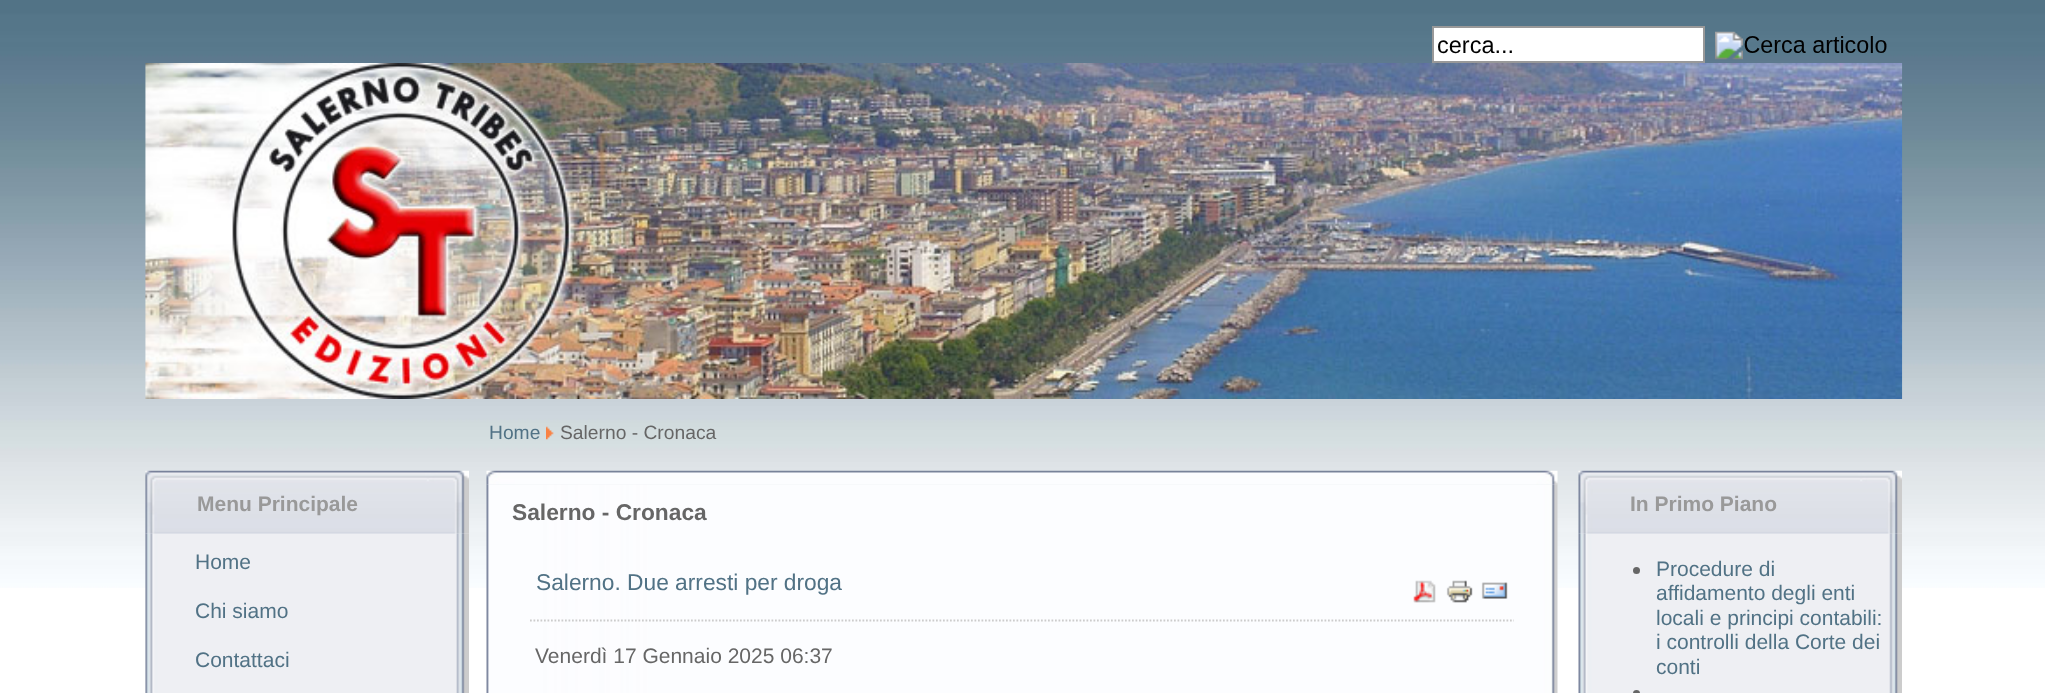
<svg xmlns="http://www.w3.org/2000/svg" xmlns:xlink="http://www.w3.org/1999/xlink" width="2045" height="693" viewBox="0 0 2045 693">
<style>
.cls-1{font:23.5px Liberation Sans;fill:#000000}
.cls-2{font:19.25px Liberation Sans;fill:#517285}
.cls-3{font:19.25px Liberation Sans;fill:#666666}
.cls-4{font:bold 21px Liberation Sans;fill:#999999}
.cls-5{font:21px Liberation Sans;fill:#517285}
.cls-6{font:bold 22.75px Liberation Sans;fill:#666666}
.cls-7{font:22.75px Liberation Sans;fill:#517285}
.cls-8{font:21px Liberation Sans;fill:#666666}
</style>
<rect width="100%" height="100%" fill="#ffffff"/>
<image xlink:href="image0.png" x="0" y="0" width="2045" height="588"/>
<rect fill="#ffffff" stroke="#999999" stroke-width="2" x="1433" y="27" width="271" height="35"/>
<image xlink:href="image1.png" x="1715" y="31" width="172" height="29"/>
<image xlink:href="image2.png" x="145" y="63" width="1758" height="336"/>
<image xlink:href="image3.png" x="546" y="426" width="8" height="14"/>
<image xlink:href="image4.png" x="145" y="470" width="324" height="64"/>
<image xlink:href="image5.png" x="145" y="533" width="324" height="160"/>
<image xlink:href="image6.png" x="486" y="470" width="1072" height="15"/>
<image xlink:href="image7.png" x="486" y="484" width="1072" height="209"/>
<path fill="none" stroke="#cccccc" stroke-width="1.8" stroke-dasharray="1.75 1.75" d="M530 620.5H1514"/>
<image xlink:href="image8.png" x="1413" y="580" width="23" height="23"/>
<image xlink:href="image9.png" x="1446" y="580" width="27" height="23"/>
<image xlink:href="image10.png" x="1481" y="582" width="27" height="17"/>
<image xlink:href="image11.png" x="1578" y="470" width="324" height="64"/>
<image xlink:href="image12.png" x="1578" y="533" width="324" height="160"/>
<circle fill="#666666" cx="1636.5" cy="570.5" r="3.5"/>
<circle fill="#666666" cx="1636.5" cy="693.5" r="3.5"/>
<text class="cls-1" x="1437" y="53">cerca...</text>
<text class="cls-2" x="489" y="439">Home</text>
<text class="cls-3" x="560" y="439">Salerno - Cronaca</text>
<text class="cls-4" x="197" y="511">Menu Principale</text>
<text class="cls-5" x="195" y="569">Home</text>
<text class="cls-5" x="195" y="618">Chi siamo</text>
<text class="cls-5" x="195" y="667">Contattaci</text>
<text class="cls-6" x="512" y="520">Salerno - Cronaca</text>
<text class="cls-7" x="536" y="590">Salerno. Due arresti per droga</text>
<text class="cls-8" x="535" y="663">Venerdì 17 Gennaio 2025 06:37</text>
<text class="cls-4" x="1630" y="511">In Primo Piano</text>
<text class="cls-5"><tspan x="1656" y="576">Procedure di</tspan><tspan x="1656" y="600">affidamento degli enti</tspan><tspan x="1656" y="625">locali e principi contabili:</tspan><tspan x="1656" y="649">i controlli della Corte dei</tspan><tspan x="1656" y="674">conti</tspan></text>
</svg>
